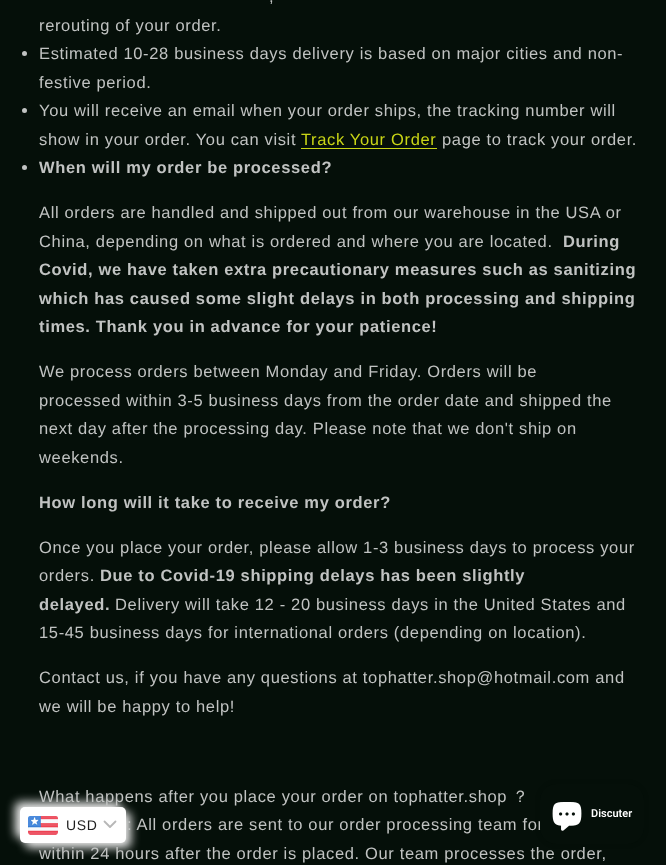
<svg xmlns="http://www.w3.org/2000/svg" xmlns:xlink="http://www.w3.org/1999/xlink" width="666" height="865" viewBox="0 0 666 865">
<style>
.cls-1{font:16.5px Liberation Sans;letter-spacing:0.65px;fill:#c1c3c2}
.cls-2{font:16.5px Liberation Sans;letter-spacing:0.65px;fill:#c9d516}
.cls-3{font:bold 16.5px Liberation Sans;letter-spacing:0.65px;fill:#c1c3c2}
.cls-4{font:500 16.5px WenQuanYi Zen Hei;letter-spacing:0.65px;fill:#c1c3c2}
.cls-5{font:600 11px Roboto;fill:#ffffff}
.cls-6{font:14px Liberation Sans;letter-spacing:0.65px;fill:#1e1e1e}
</style>
<rect width="100%" height="100%" fill="#050f09"/>
<circle fill="#c1c3c2" cx="24.5" cy="53.5" r="2.5"/>
<circle fill="#c1c3c2" cx="24.5" cy="110.5" r="2.5"/>
<rect fill="#c9d516" x="301" y="148" width="136" height="1"/>
<circle fill="#c1c3c2" cx="24.5" cy="167.5" r="2.5"/>
<rect fill="#000000" fill-opacity="0.15" filter="blur(2.5px)" x="540" y="784" width="104" height="60" rx="16"/>
<rect fill="#e8e8e8" filter="blur(5px)" x="15" y="802" width="106" height="36" rx="5"/>
<rect fill="#e8e8e8" filter="blur(5px)" x="25" y="812" width="106" height="36" rx="5"/>
<rect fill="#ffffff" x="20" y="807" width="106" height="36" rx="5"/>
<image xlink:href="image1.png" x="28" y="816" width="30" height="19"/>
<path fill="none" stroke="#b7b7b7" stroke-width="1.8" stroke-linecap="round" stroke-linejoin="round" d="M104.5 821.5L110 827L115.5 821.5"/>
<text class="cls-1" x="269" y="2">,</text>
<text class="cls-1"><tspan x="39" y="31">rerouting of your order.</tspan><tspan x="39" y="59">Estimated 10-28 business days delivery is based on major cities and non-</tspan><tspan x="39" y="88">festive period.</tspan><tspan x="39" y="116">You will receive an email when your order ships, the tracking number will</tspan><tspan x="39" y="145">show in your order. You can visit</tspan></text>
<text class="cls-2" x="301" y="145">Track Your Order</text>
<text class="cls-1" x="442" y="145">page to track your order.</text>
<text class="cls-3" x="39" y="173">When will my order be processed?</text>
<text class="cls-1"><tspan x="39" y="218">All orders are handled and shipped out from our warehouse in the USA or</tspan><tspan x="39" y="247">China, depending on what is ordered and where you are located.</tspan></text>
<text class="cls-3" x="563" y="247">During</text>
<text class="cls-3"><tspan x="39" y="275">Covid, we have taken extra precautionary measures such as sanitizing</tspan><tspan x="39" y="304">which has caused some slight delays in both processing and shipping</tspan><tspan x="39" y="332">times. Thank you in advance for your patience!</tspan></text>
<text class="cls-1"><tspan x="39" y="377">We process orders between Monday and Friday. Orders will be</tspan><tspan x="39" y="406">processed within 3-5 business days from the order date and shipped the</tspan><tspan x="39" y="434">next day after the processing day. Please note that we don't ship on</tspan><tspan x="39" y="463">weekends.</tspan></text>
<text class="cls-3" x="39" y="508">How long will it take to receive my order?</text>
<text class="cls-1"><tspan x="39" y="553">Once you place your order, please allow 1-3 business days to process your</tspan><tspan x="39" y="581">orders.</tspan></text>
<text class="cls-3" x="100" y="581">Due to Covid-19 shipping delays has been slightly</text>
<text class="cls-3" x="39" y="610">delayed.</text>
<text class="cls-1" x="115" y="610">Delivery will take 12 - 20 business days in the United States and</text>
<text class="cls-1" x="39" y="638">15-45 business days for international orders (depending on location).</text>
<text class="cls-1"><tspan x="39" y="683">Contact us, if you have any questions at tophatter.shop@hotmail.com and</tspan><tspan x="39" y="712">we will be happy to help!</tspan></text>
<text class="cls-1" x="39" y="802">What happens after you place your order on tophatter.shop</text>
<text class="cls-4" x="512" y="802">？</text>
<text class="cls-1" x="127" y="830">: All orders are sent to our order processing team for</text>
<text class="cls-1" x="39" y="859">within 24 hours after the order is placed. Our team processes the order,</text>
<rect fill="#050f09" x="540" y="784" width="104" height="60" rx="16"/>
<image xlink:href="image0.png" x="552" y="802" width="30" height="29"/>
<text class="cls-5" x="591" y="817">Discuter</text>
<text class="cls-6" x="66" y="830">USD</text>
</svg>
